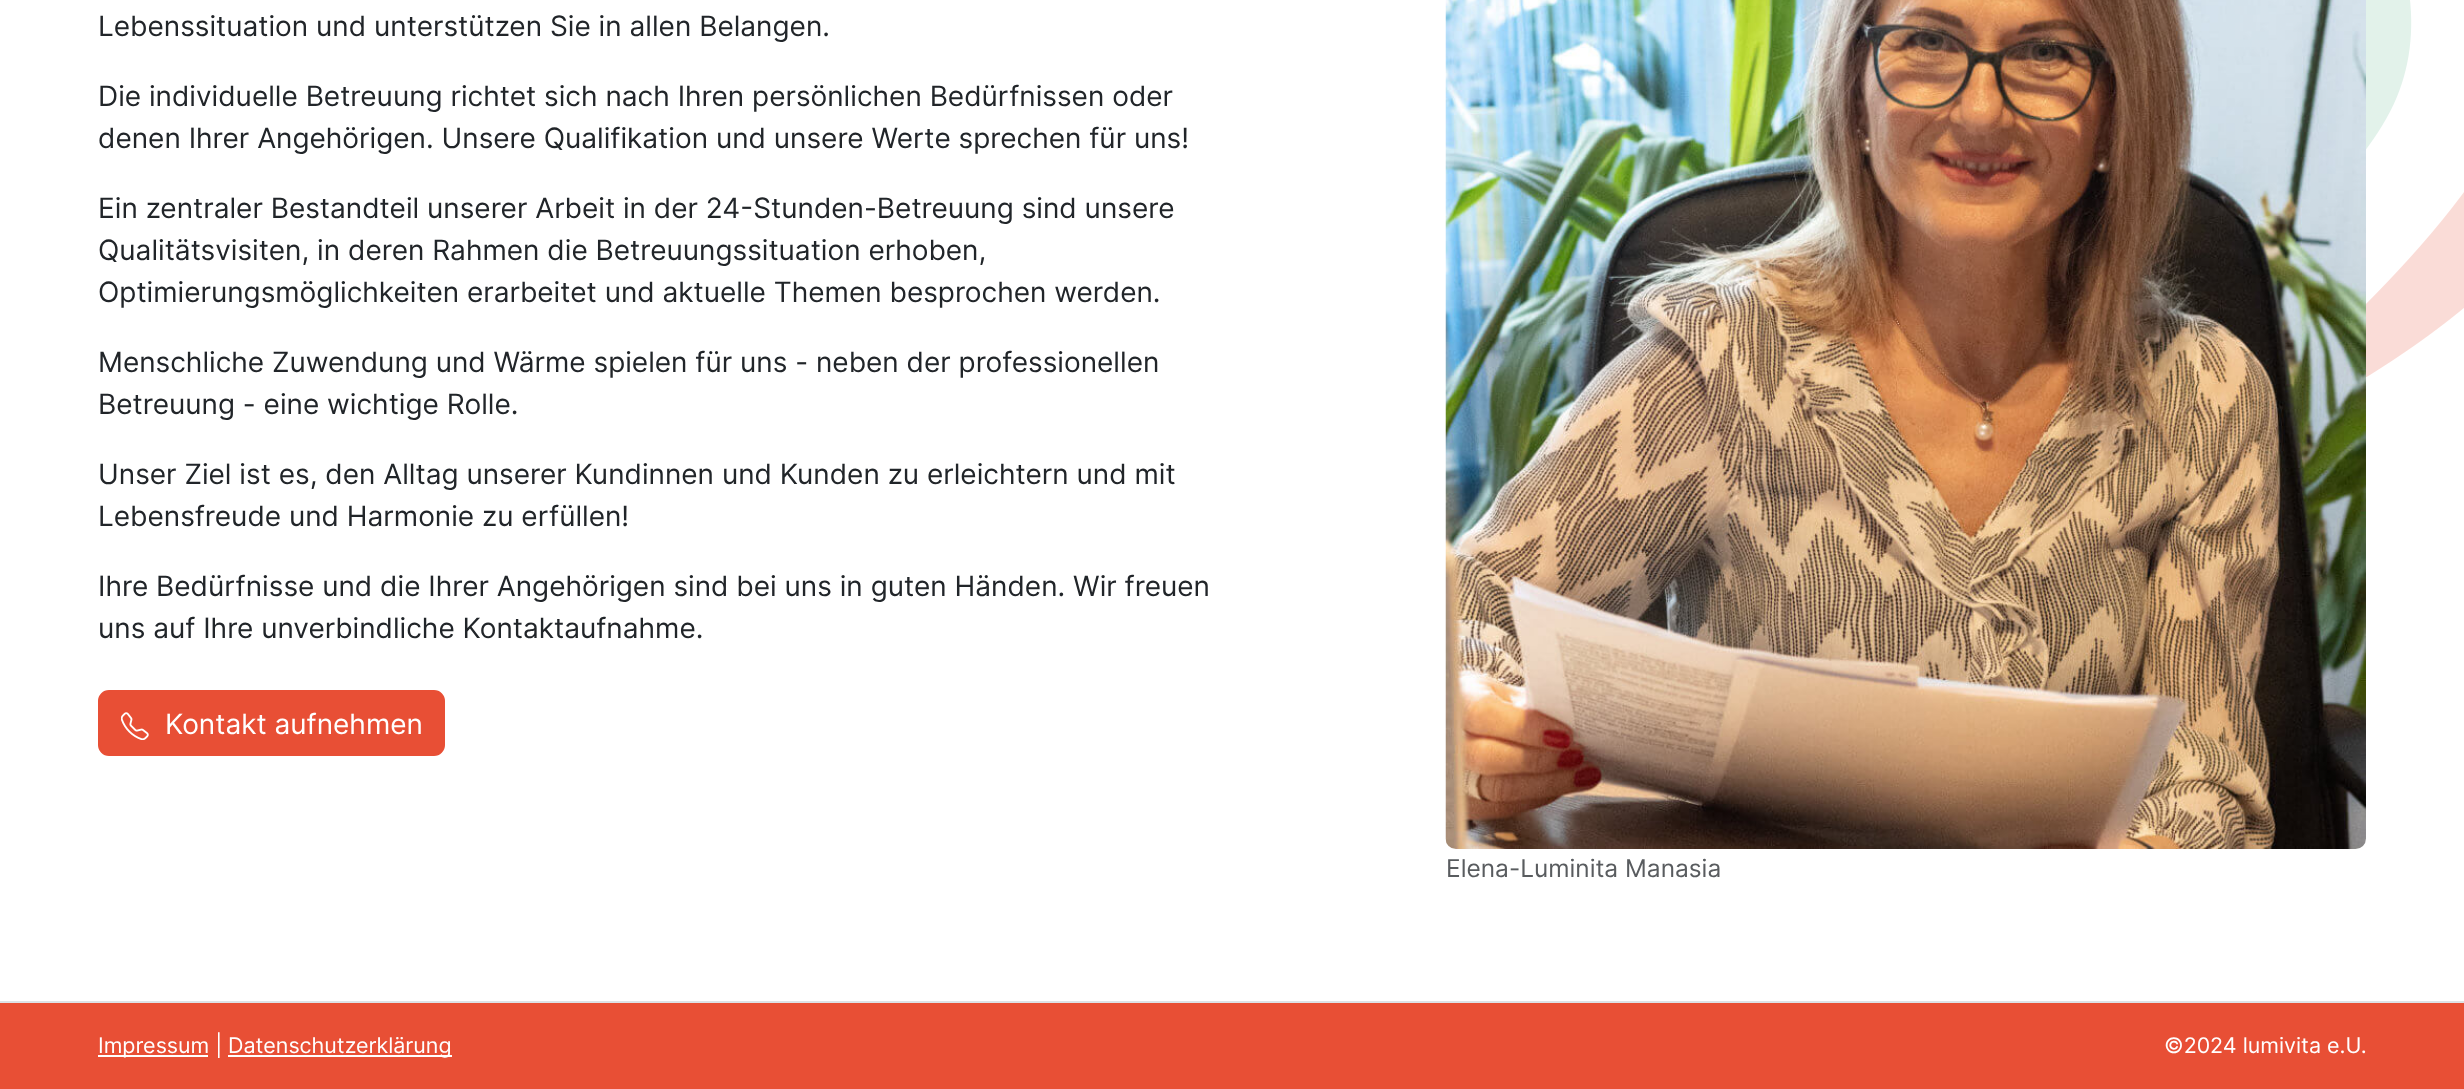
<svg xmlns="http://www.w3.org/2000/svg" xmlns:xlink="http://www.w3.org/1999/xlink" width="2464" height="1089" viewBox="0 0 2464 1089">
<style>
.cls-1{font:28px Inter;fill:#212529}
.cls-2{font:28px Inter;fill:#ffffff}
.cls-3{font:24.5px Inter;fill:#595c5f}
.cls-4{font:21.5px Inter;fill:#ffffff}
</style>
<rect width="100%" height="100%" fill="#ffffff"/>
<rect fill="#e84f35" stroke="#e84f35" stroke-width="2" x="99" y="691" width="345" height="64" rx="10"/>
<image xlink:href="image0.png" x="121" y="712" width="28" height="28"/>
<image xlink:href="image1.png" x="1445" y="0" width="921" height="849"/>
<image xlink:href="image2.png" x="2366" y="0" width="98" height="377"/>
<rect fill="#e84f35" x="0" y="1003" width="2464" height="86"/>
<rect fill="#dee2e6" x="0" y="1001" width="2464" height="2"/>
<rect fill="#ffffff" x="98" y="1055" width="110" height="2"/>
<rect fill="#ffffff" x="228" y="1055" width="224" height="2"/>
<text class="cls-1" x="98" y="36">Lebenssituation und unterstützen Sie in allen Belangen.</text>
<text class="cls-1"><tspan x="98" y="106">Die individuelle Betreuung richtet sich nach Ihren persönlichen Bedürfnissen oder</tspan><tspan x="98" y="148">denen Ihrer Angehörigen. Unsere Qualifikation und unsere Werte sprechen für uns!</tspan></text>
<text class="cls-1"><tspan x="98" y="218">Ein zentraler Bestandteil unserer Arbeit in der 24-Stunden-Betreuung sind unsere</tspan><tspan x="98" y="260">Qualitätsvisiten, in deren Rahmen die Betreuungssituation erhoben,</tspan><tspan x="98" y="302">Optimierungsmöglichkeiten erarbeitet und aktuelle Themen besprochen werden.</tspan></text>
<text class="cls-1"><tspan x="98" y="372">Menschliche Zuwendung und Wärme spielen für uns - neben der professionellen</tspan><tspan x="98" y="414">Betreuung - eine wichtige Rolle.</tspan></text>
<text class="cls-1"><tspan x="98" y="484">Unser Ziel ist es, den Alltag unserer Kundinnen und Kunden zu erleichtern und mit</tspan><tspan x="98" y="526">Lebensfreude und Harmonie zu erfüllen!</tspan></text>
<text class="cls-1"><tspan x="98" y="596">Ihre Bedürfnisse und die Ihrer Angehörigen sind bei uns in guten Händen. Wir freuen</tspan><tspan x="98" y="638">uns auf Ihre unverbindliche Kontaktaufnahme.</tspan></text>
<text class="cls-2" x="165" y="734">Kontakt aufnehmen</text>
<text class="cls-3" x="1446" y="877">Elena-Luminita Manasia</text>
<text class="cls-4" x="98" y="1053">Impressum |</text>
<text class="cls-4" x="228" y="1053">Datenschutzerklärung</text>
<text class="cls-4" x="2164" y="1053">©2024 lumivita e.U.</text>
</svg>
